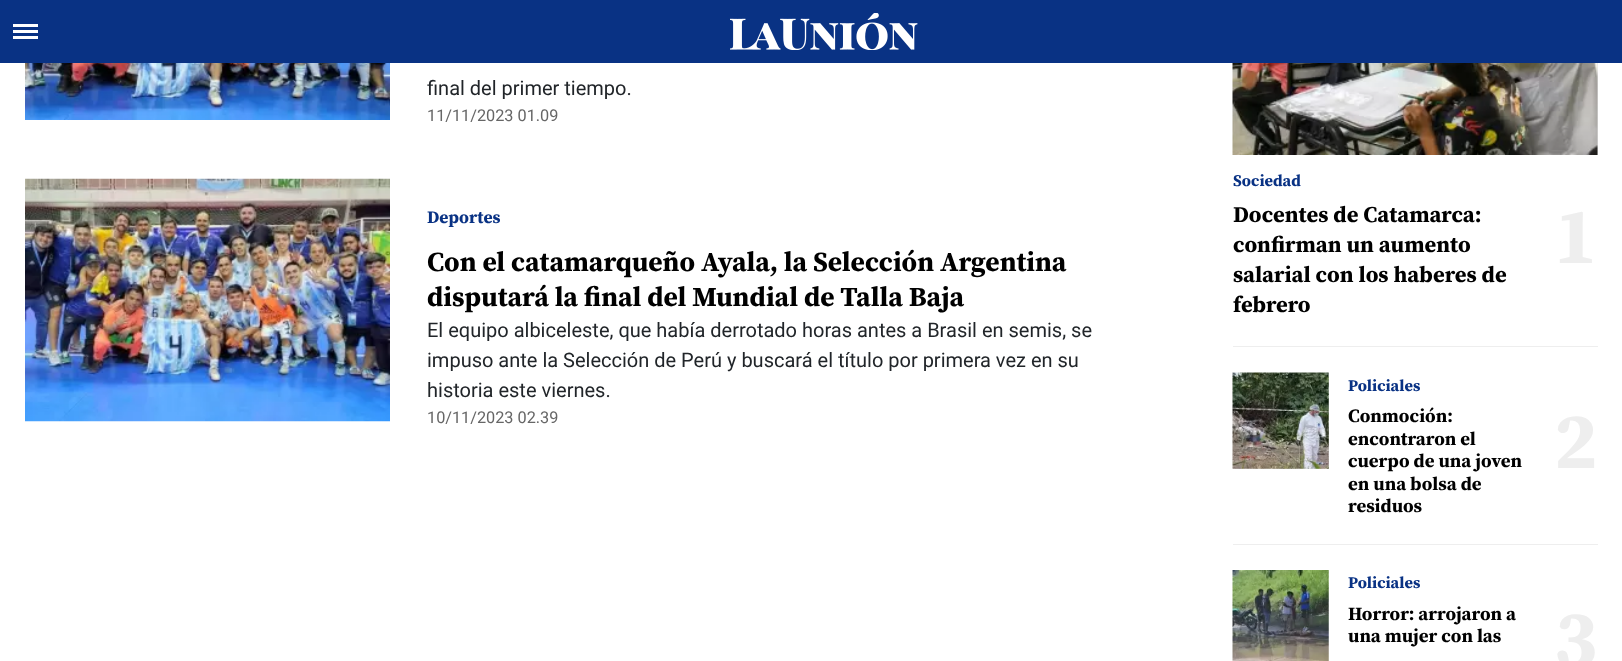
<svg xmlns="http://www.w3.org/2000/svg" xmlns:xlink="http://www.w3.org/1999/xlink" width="1622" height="661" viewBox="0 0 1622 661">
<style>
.cls-1{font:20px Roboto;fill:#212529}
.cls-2{font:16.25px Roboto;fill:#666666}
.cls-3{font:bold 17.5px Source Serif Pro;fill:#093284}
.cls-4{font:bold 27.5px Source Serif Pro;fill:#000000}
.cls-5{font:bold 16.25px Source Serif Pro;fill:#093284}
.cls-6{font:bold 22.5px Source Serif Pro;fill:#000000}
.cls-7{font:bold 80px Source Serif Pro;fill:#eeeeee}
.cls-8{font:bold 18.75px Source Serif Pro;fill:#000000}
</style>
<rect width="100%" height="100%" fill="#ffffff"/>
<rect fill="#093284" x="0" y="0" width="1622" height="63"/>
<rect fill="#ffffff" x="13" y="24" width="25" height="3"/>
<rect fill="#ffffff" x="13" y="30" width="25" height="3"/>
<rect fill="#ffffff" x="13" y="36" width="25" height="3"/>
<image xlink:href="image0.png" x="730" y="13" width="188" height="37"/>
<image xlink:href="image1.png" x="25" y="63" width="365" height="57"/>
<image xlink:href="image2.png" x="25" y="178" width="365" height="244"/>
<rect fill="#eeeeee" x="1233" y="346" width="365" height="1"/>
<rect fill="#dddddd" x="1597" y="63" width="1" height="92"/>
<image xlink:href="image3.png" x="1232" y="63" width="366" height="92"/>
<rect fill="#eeeeee" x="1233" y="544" width="365" height="1"/>
<rect fill="#dddddd" x="1233" y="373" width="96" height="96"/>
<image xlink:href="image4.png" x="1232" y="372" width="97" height="97"/>
<image xlink:href="image5.png" x="1232" y="570" width="97" height="91"/>
<text class="cls-1" x="427" y="95">final del primer tiempo.</text>
<text class="cls-2" x="427" y="121">11/11/2023 01.09</text>
<text class="cls-3" x="427" y="223">Deportes</text>
<text class="cls-4"><tspan x="427" y="271">Con el catamarqueño Ayala, la Selección Argentina</tspan><tspan x="427" y="306">disputará la final del Mundial de Talla Baja</tspan></text>
<text class="cls-1"><tspan x="427" y="337">El equipo albiceleste, que había derrotado horas antes a Brasil en semis, se</tspan><tspan x="427" y="367">impuso ante la Selección de Perú y buscará el título por primera vez en su</tspan><tspan x="427" y="397">historia este viernes.</tspan></text>
<text class="cls-2" x="427" y="423">10/11/2023 02.39</text>
<text class="cls-5" x="1233" y="186">Sociedad</text>
<text class="cls-6"><tspan x="1233" y="222">Docentes de Catamarca:</tspan><tspan x="1233" y="252">confirman un aumento</tspan><tspan x="1233" y="282">salarial con los haberes de</tspan><tspan x="1233" y="312">febrero</tspan></text>
<text class="cls-7" x="1554" y="263">1</text>
<text class="cls-5" x="1348" y="391">Policiales</text>
<text class="cls-8"><tspan x="1348" y="422">Conmoción:</tspan><tspan x="1348" y="445">encontraron el</tspan><tspan x="1348" y="467">cuerpo de una joven</tspan><tspan x="1348" y="490">en una bolsa de</tspan><tspan x="1348" y="512">residuos</tspan></text>
<text class="cls-7" x="1554" y="468">2</text>
<text class="cls-5" x="1348" y="588">Policiales</text>
<text class="cls-8"><tspan x="1348" y="620">Horror: arrojaron a</tspan><tspan x="1348" y="642">una mujer con las</tspan></text>
<text class="cls-7" x="1554" y="666">3</text>
</svg>
